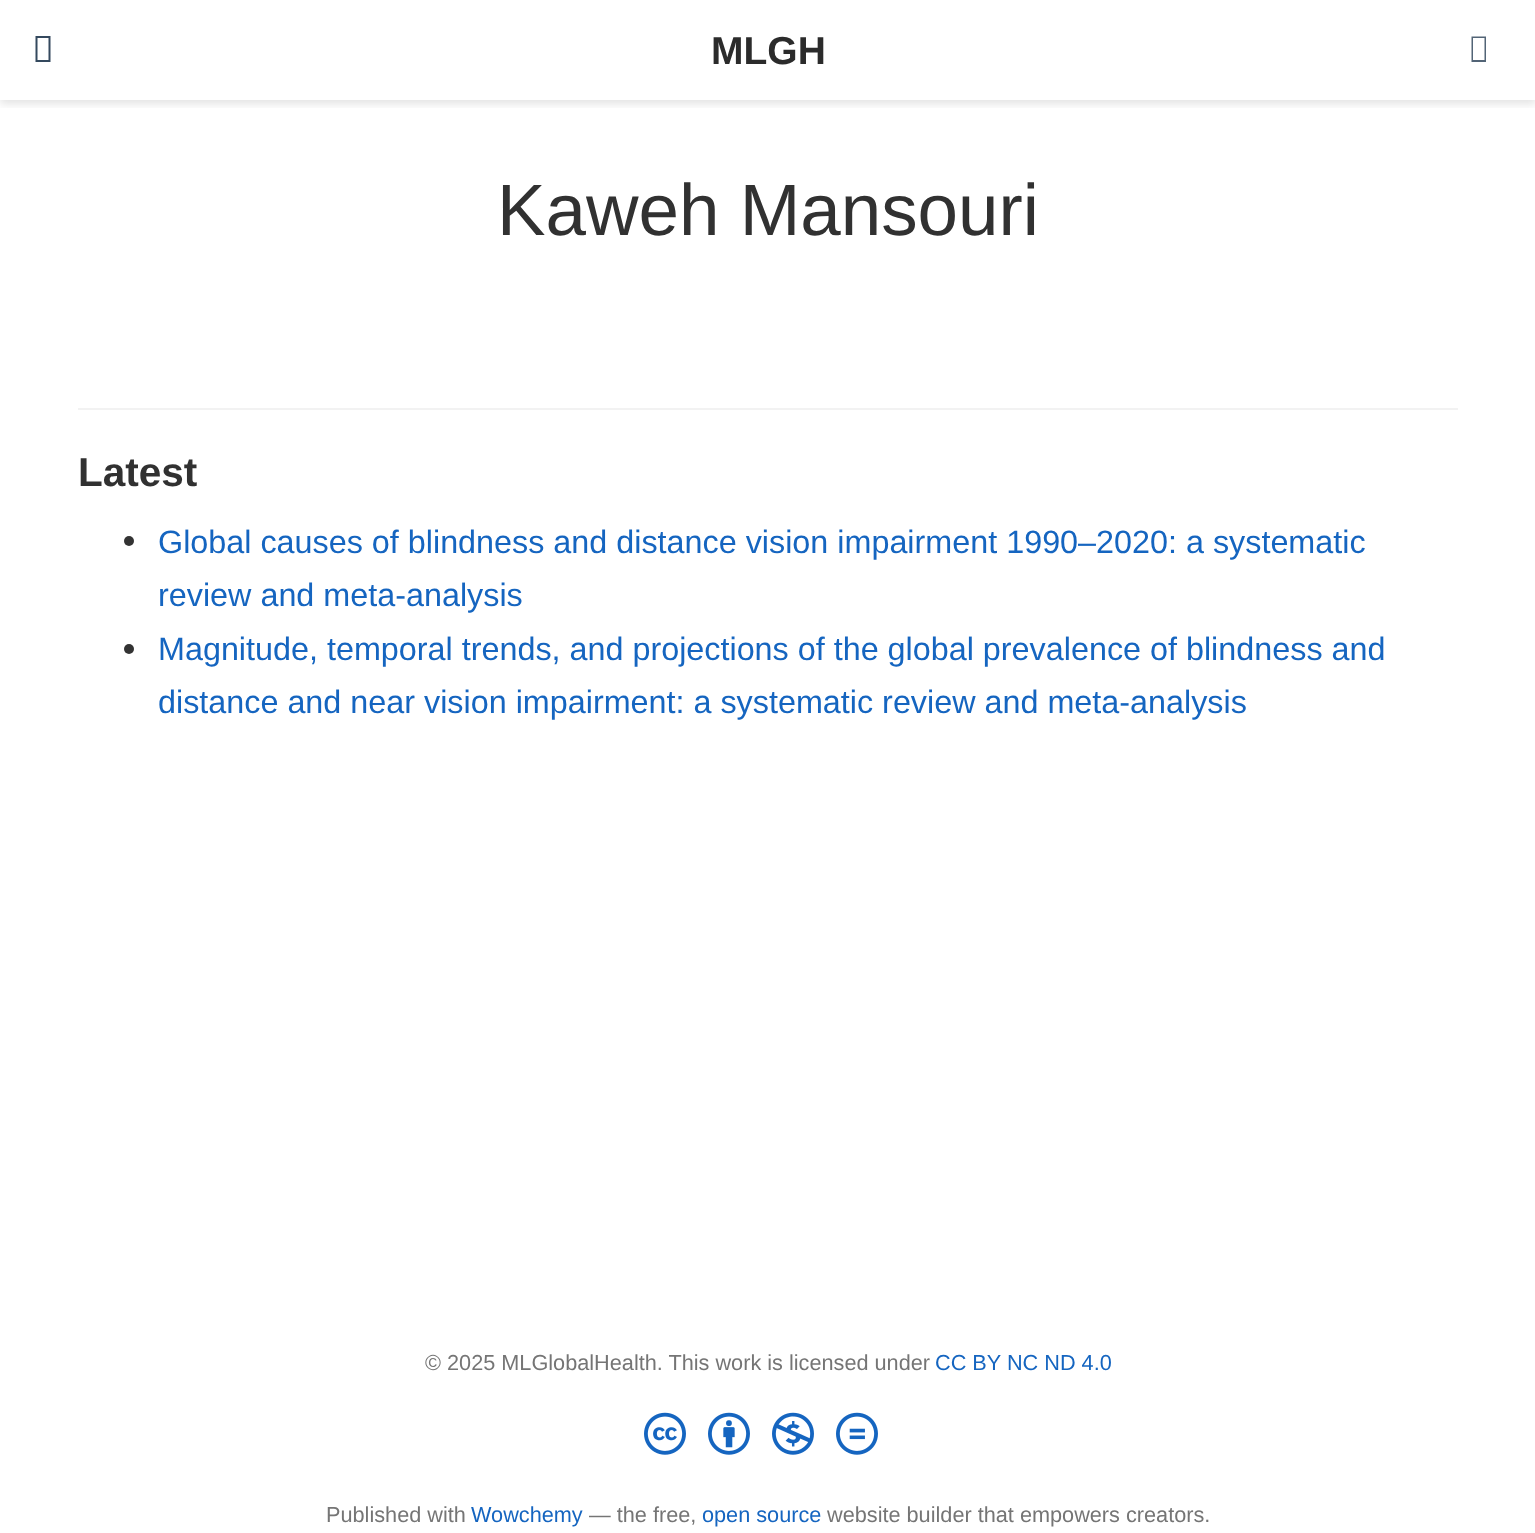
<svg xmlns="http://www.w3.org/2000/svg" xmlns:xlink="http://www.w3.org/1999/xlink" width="1535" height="1533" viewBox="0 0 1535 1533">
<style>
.cls-1{font:bold 39px Liberation Sans;fill:#2b2b2b}
.cls-2{font:72.75px Liberation Sans;fill:#313131}
.cls-3{font:bold 40.5px Liberation Sans;fill:#313131}
.cls-4{font:32.35px Liberation Sans;fill:#1565c0}
.cls-5{font:21.7px Liberation Sans;fill:#757575}
.cls-6{font:21.7px Liberation Sans;fill:#1565c0}
</style>
<defs>
<clipPath id="clip1"><rect x="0" y="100" width="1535" height="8"/></clipPath>
</defs>
<rect width="100%" height="100%" fill="#ffffff"/>
<g clip-path="url(#clip1)">
<rect fill="#000000" fill-opacity="0.11" filter="blur(4px)" x="0" y="4" width="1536" height="100"/>
</g>
<path fill="#34495e" d="M35.5 62V36H50.5V62ZM37.5 60H48.5V38H37.5Z"/>
<path fill="#526476" d="M1471.5 62V36.5H1486V62ZM1473 60H1484.5V38H1473Z"/>
<rect fill="#f2f2f2" x="78" y="408" width="1380" height="2"/>
<circle fill="#333333" cx="129" cy="541" r="5"/>
<circle fill="#333333" cx="129" cy="649" r="5"/>
<image xlink:href="image0.png" x="644" y="1412" width="42" height="43"/>
<image xlink:href="image1.png" x="708" y="1412" width="42" height="43"/>
<image xlink:href="image2.png" x="772" y="1412" width="42" height="43"/>
<image xlink:href="image3.png" x="836" y="1412" width="42" height="43"/>
<text class="cls-1" x="711" y="64">MLGH</text>
<text class="cls-2" x="497" y="235">Kaweh Mansouri</text>
<text class="cls-3" x="78" y="486">Latest</text>
<text class="cls-4"><tspan x="158" y="553">Global causes of blindness and distance vision impairment 1990–2020: a systematic</tspan><tspan x="158" y="606">review and meta-analysis</tspan><tspan x="158" y="660">Magnitude, temporal trends, and projections of the global prevalence of blindness and</tspan><tspan x="158" y="713">distance and near vision impairment: a systematic review and meta-analysis</tspan></text>
<text class="cls-5" x="425" y="1370">© 2025 MLGlobalHealth. This work is licensed under</text>
<text class="cls-6" x="935" y="1370">CC BY NC ND 4.0</text>
<text class="cls-5" x="326" y="1522">Published with</text>
<text class="cls-6" x="471" y="1522">Wowchemy</text>
<text class="cls-5" x="589" y="1522">— the free,</text>
<text class="cls-6" x="702" y="1522">open source</text>
<text class="cls-5" x="827" y="1522">website builder that empowers creators.</text>
</svg>
